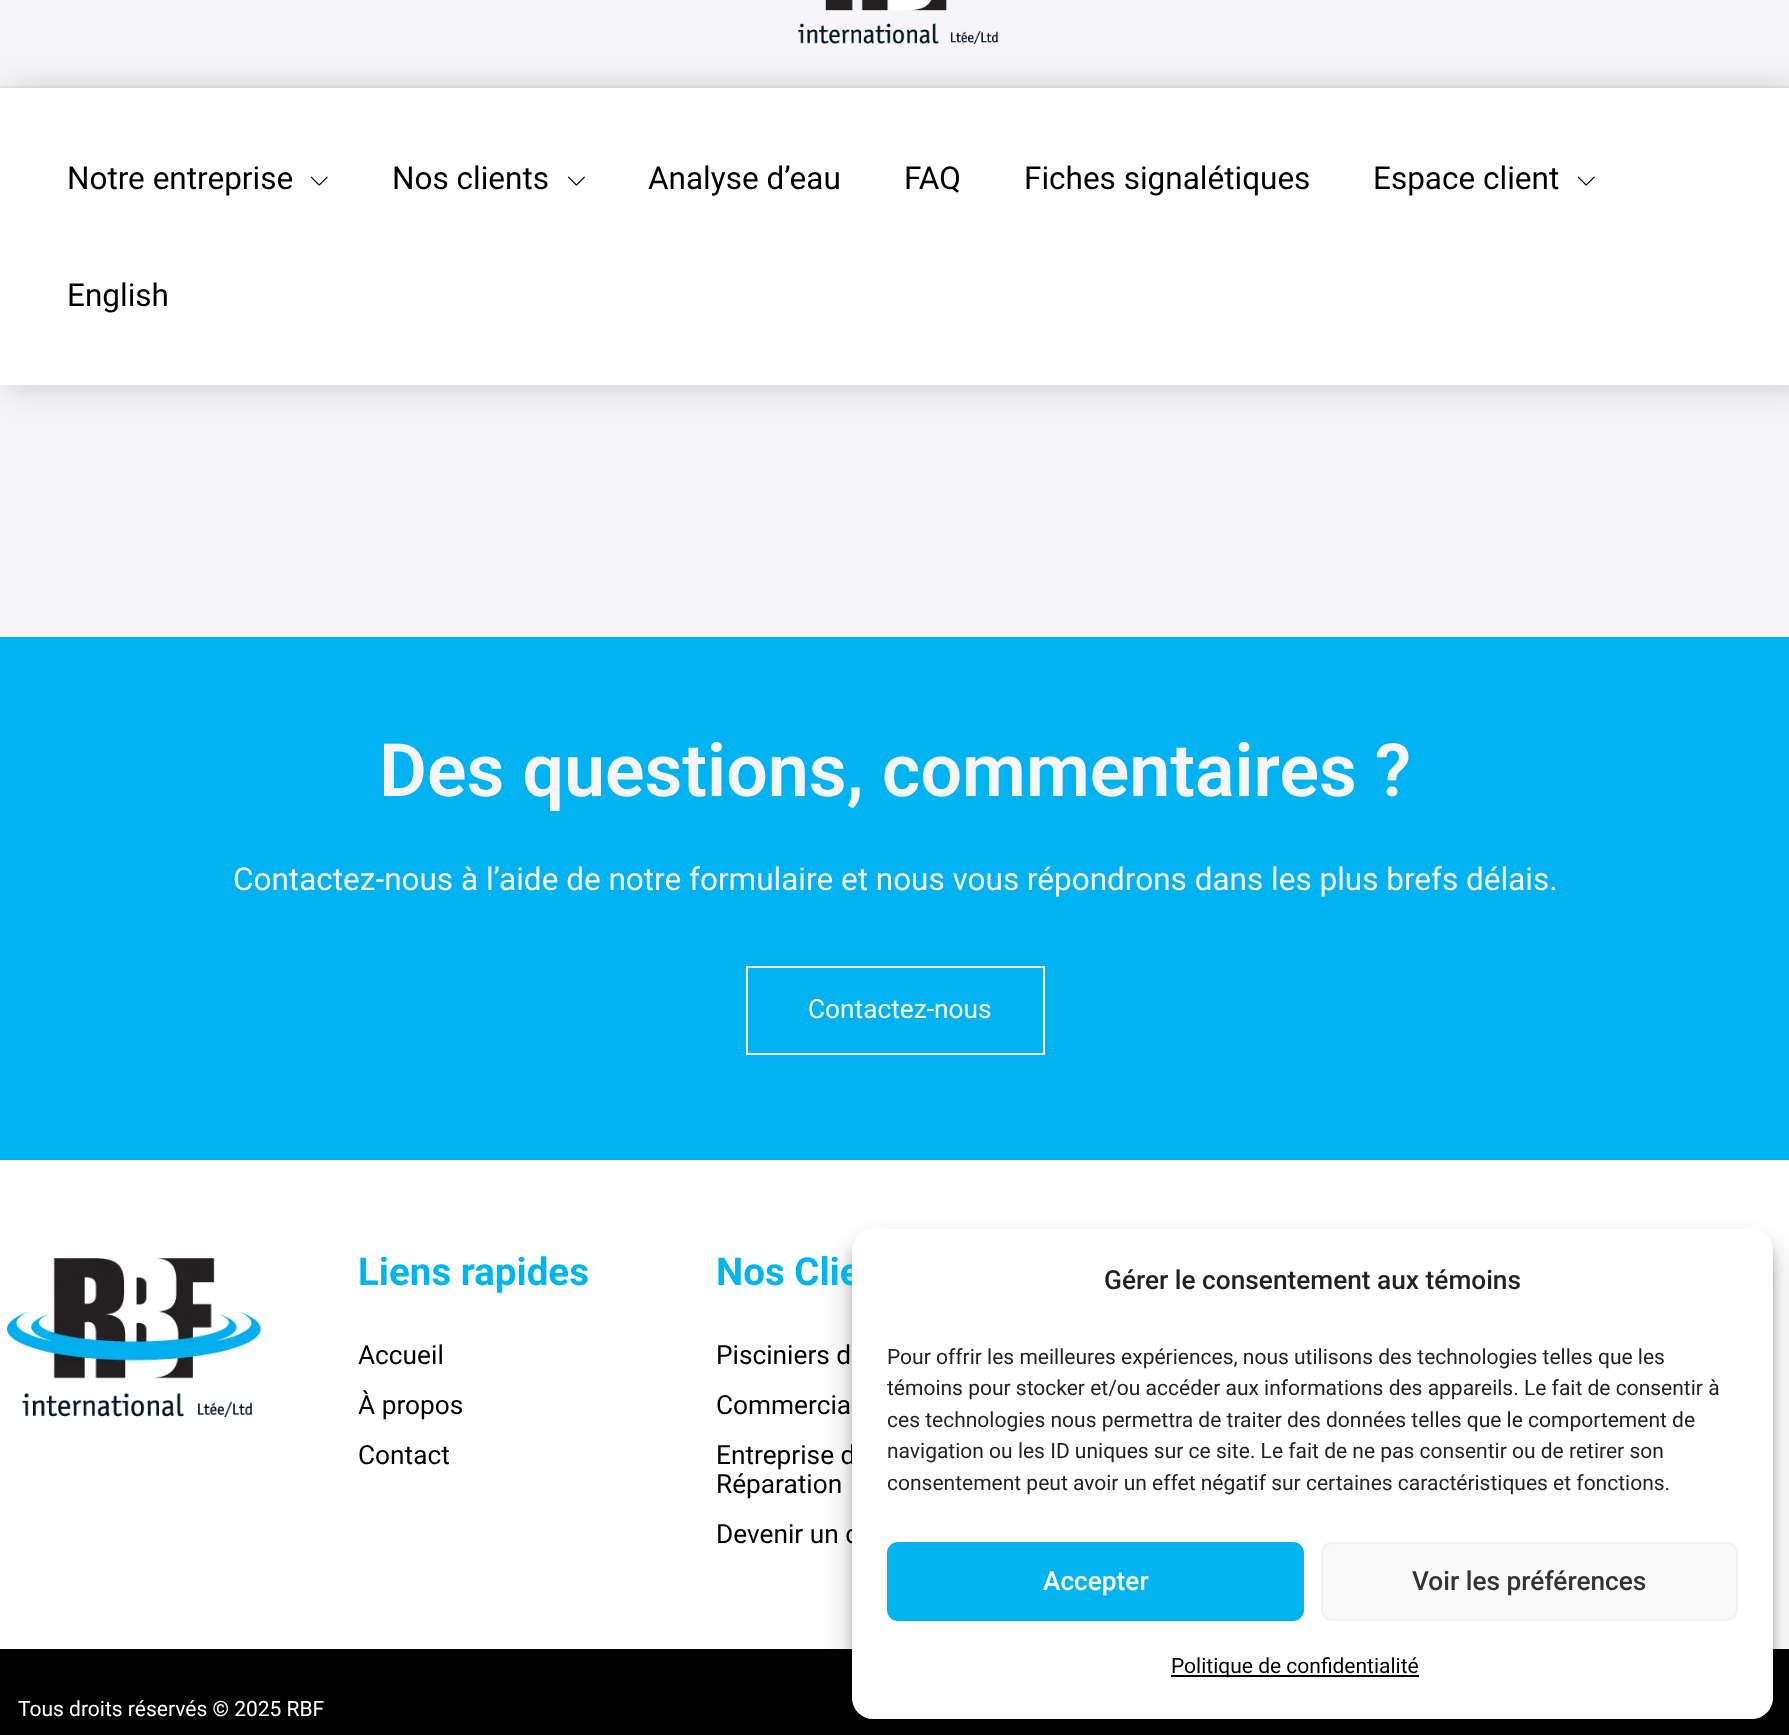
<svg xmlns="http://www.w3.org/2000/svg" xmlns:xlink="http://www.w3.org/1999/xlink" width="1789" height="1735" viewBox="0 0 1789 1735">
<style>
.cls-1{font:31.5px Roboto;fill:#000000}
.cls-2{font:600 73.5px Roboto;fill:#f6f6f8}
.cls-3{font:31.5px Roboto;fill:#f6f6f8}
.cls-4{font:26.25px Roboto;fill:#ffffff}
.cls-5{font:bold 38.5px Roboto;fill:#00b4ef}
.cls-6{font:26.25px Roboto;fill:#000000}
.cls-7{font:21px Roboto;fill:#ffffff}
.cls-8{font:500 26.25px Roboto;fill:#222222}
.cls-9{font:21px Roboto;fill:#222222}
.cls-10{font:500 26.25px Roboto;fill:#ffffff}
.cls-11{font:500 26.25px Roboto;fill:#333333}
.cls-12{font:21px Roboto;fill:#000000}
</style>
<rect width="100%" height="100%" fill="#f6f6f8"/>
<rect fill="#eaeaea" x="0" y="86" width="1789" height="2"/>
<image xlink:href="image0.png" x="798" y="0" width="201" height="44"/>
<rect fill="#000000" fill-opacity="0.18" filter="blur(16px)" x="9" y="89" width="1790" height="298"/>
<rect fill="#ffffff" x="0" y="88" width="1789" height="297"/>
<image xlink:href="image1.png" x="310" y="176" width="18" height="10"/>
<image xlink:href="image2.png" x="568" y="176" width="17" height="10"/>
<image xlink:href="image1.png" x="1577" y="176" width="18" height="10"/>
<rect fill="#00b2f0" x="0" y="637" width="1789" height="523"/>
<rect fill="none" stroke="#ffffff" stroke-width="2" x="747" y="967" width="297" height="87"/>
<rect fill="#ffffff" x="0" y="1160" width="1789" height="489"/>
<image xlink:href="image3.png" x="7" y="1258" width="254" height="159"/>
<rect fill="#000000" x="0" y="1649" width="1789" height="86"/>
<rect fill="#000000" fill-opacity="0.23" filter="blur(5px)" x="852" y="1239" width="921" height="490" rx="21"/>
<rect fill="#000000" fill-opacity="0.19" filter="blur(17.5px)" x="852" y="1246" width="921" height="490" rx="21"/>
<text class="cls-1" x="67" y="189">Notre entreprise</text>
<text class="cls-1" x="392" y="189">Nos clients</text>
<text class="cls-1" x="648" y="189">Analyse d’eau</text>
<text class="cls-1" x="904" y="189">FAQ</text>
<text class="cls-1" x="1024" y="189">Fiches signalétiques</text>
<text class="cls-1" x="1373" y="189">Espace client</text>
<text class="cls-1" x="67" y="306">English</text>
<text class="cls-2" x="379" y="796">Des questions, commentaires ?</text>
<text class="cls-3" x="233" y="890">Contactez-nous à l’aide de notre formulaire et nous vous répondrons dans les plus brefs délais.</text>
<text class="cls-4" x="808" y="1018">Contactez-nous</text>
<text class="cls-5" x="358" y="1285">Liens rapides</text>
<text class="cls-6"><tspan x="358" y="1364">Accueil</tspan><tspan x="358" y="1414">À propos</tspan><tspan x="358" y="1464">Contact</tspan></text>
<text class="cls-5" x="716" y="1285">Nos Clie</text>
<text class="cls-6"><tspan x="716" y="1364">Pisciniers d</tspan><tspan x="716" y="1414">Commercia</tspan><tspan x="716" y="1464">Entreprise d</tspan><tspan x="716" y="1493">Réparation</tspan><tspan x="716" y="1543">Devenir un c</tspan></text>
<text class="cls-7" x="18" y="1716">Tous droits réservés © 2025 RBF</text>
<rect fill="#ffffff" x="852" y="1229" width="921" height="490" rx="21"/>
<text class="cls-8" x="1104" y="1289">Gérer le consentement aux témoins</text>
<text class="cls-9"><tspan x="887" y="1364">Pour offrir les meilleures expériences, nous utilisons des technologies telles que les</tspan><tspan x="887" y="1395">témoins pour stocker et/ou accéder aux informations des appareils. Le fait de consentir à</tspan><tspan x="887" y="1427">ces technologies nous permettra de traiter des données telles que le comportement de</tspan><tspan x="887" y="1458">navigation ou les ID uniques sur ce site. Le fait de ne pas consentir ou de retirer son</tspan><tspan x="887" y="1490">consentement peut avoir un effet négatif sur certaines caractéristiques et fonctions.</tspan></text>
<rect fill="#00b4ef" stroke="#00b4ef" stroke-width="2" x="888" y="1543" width="415" height="77" rx="10"/>
<text class="cls-10" x="1043" y="1590">Accepter</text>
<rect fill="#f9f9f9" stroke="#f2f2f2" stroke-width="2" x="1322" y="1543" width="415" height="77" rx="10"/>
<text class="cls-11" x="1412" y="1590">Voir les préférences</text>
<rect fill="#000000" x="1171" y="1675" width="248" height="2"/>
<text class="cls-12" x="1171" y="1673">Politique de confidentialité</text>
</svg>
